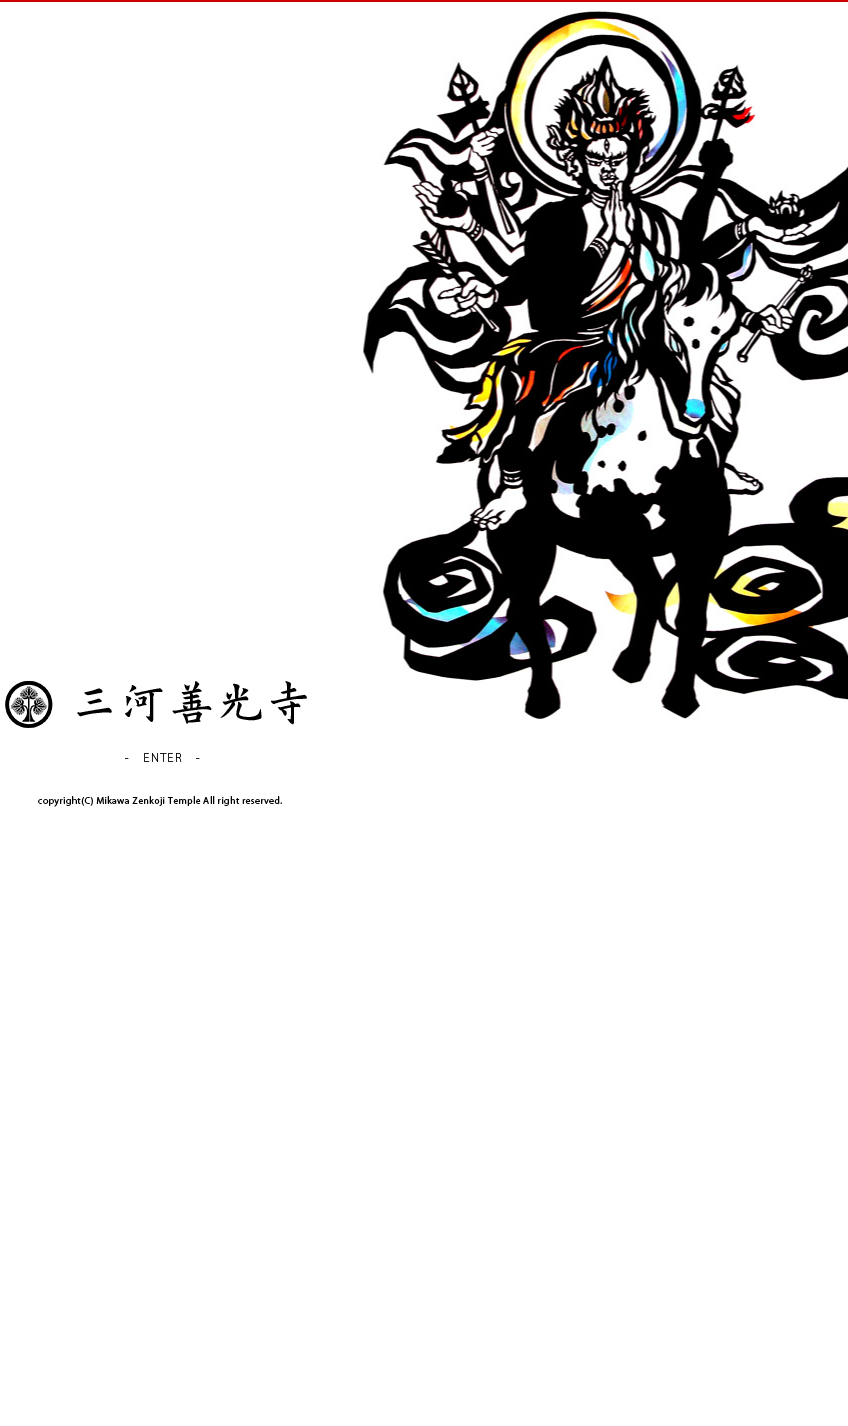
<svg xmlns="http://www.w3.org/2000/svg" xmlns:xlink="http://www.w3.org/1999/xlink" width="848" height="1426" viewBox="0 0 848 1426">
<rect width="100%" height="100%" fill="#ffffff"/>
<image xlink:href="image0.png" x="363" y="11" width="485" height="708"/>
<rect fill="#cc0000" x="0" y="0" width="848" height="2"/>
<image xlink:href="image1.png" x="5" y="680" width="302" height="127"/>
</svg>
